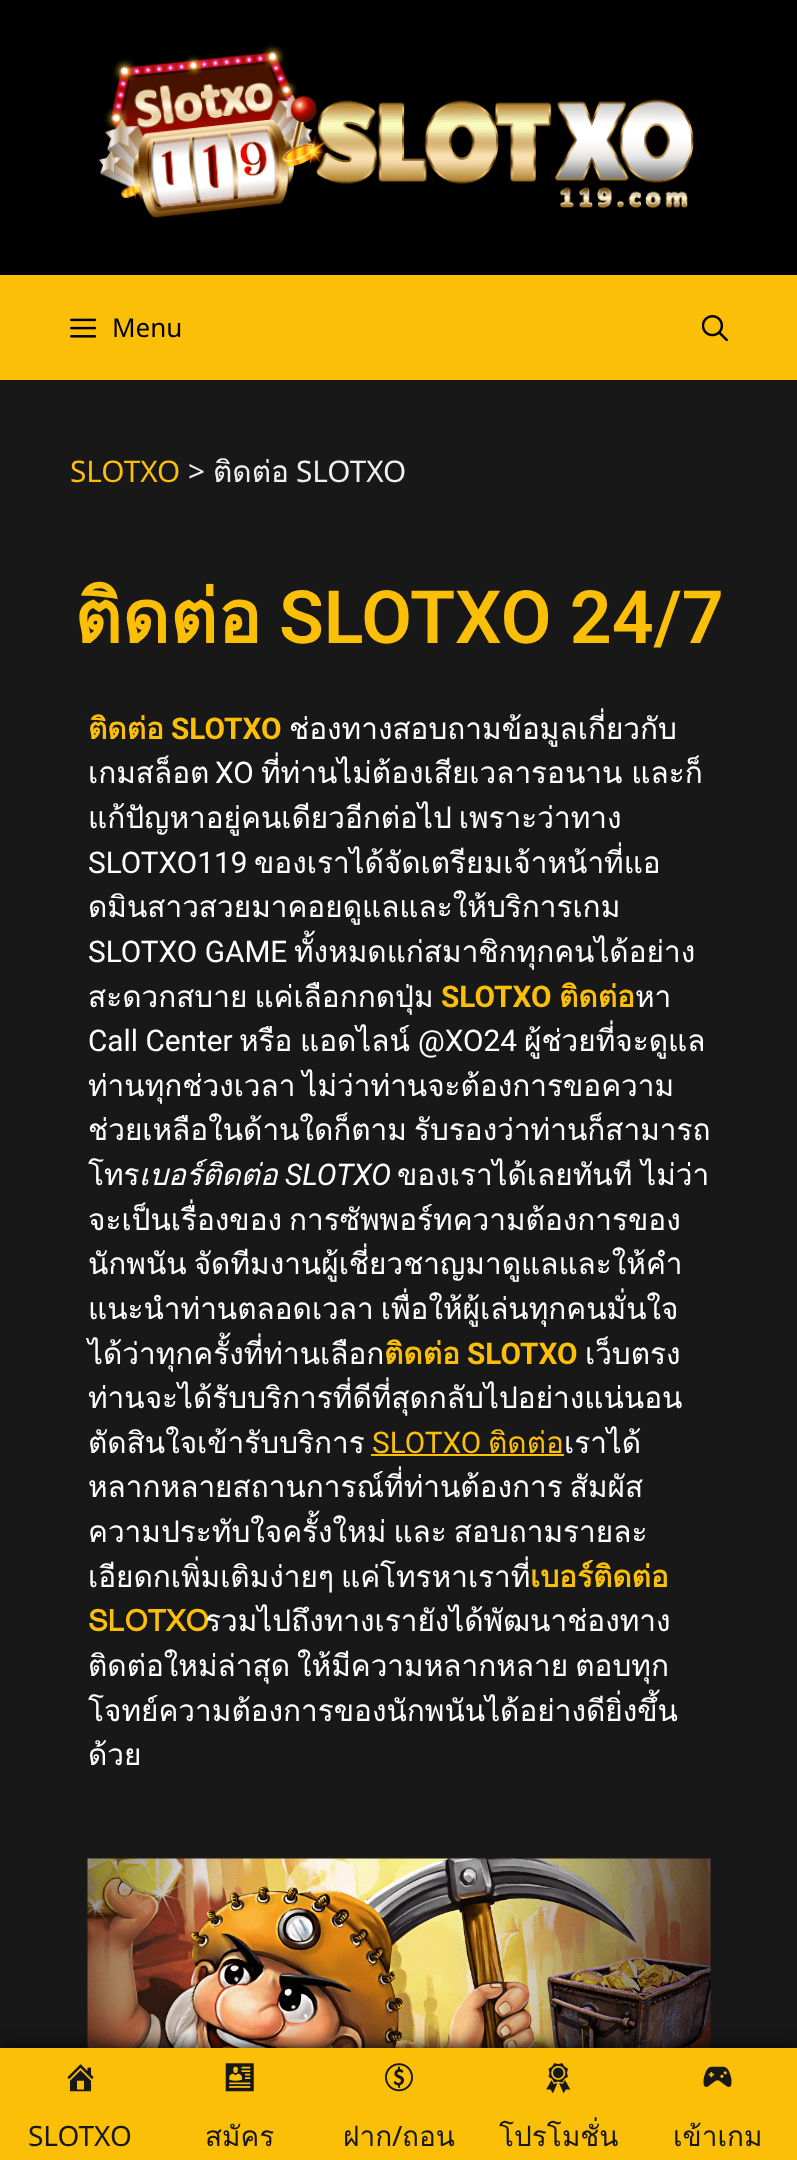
<svg xmlns="http://www.w3.org/2000/svg" xmlns:xlink="http://www.w3.org/1999/xlink" width="797" height="2160" viewBox="0 0 797 2160">
<style>
.cls-1{font:26px Noto Sans;fill:#000000}
.cls-2{font:29.75px Noto Sans;fill:#fcbf07}
.cls-3{font:29.75px Noto Sans;fill:#f0f0f0}
.cls-4{font:29.75px Loma;fill:#f0f0f0}
.cls-5{font:bold 73.5px Loma;fill:#fcbf07}
.cls-6{font:600 73.5px Roboto;fill:#fcbf07}
.cls-7{font:bold 29.75px Loma;fill:#fcbf07}
.cls-8{font:bold 29.75px Roboto;fill:#fcbf07}
.cls-9{font:29.75px Loma;fill:#ffffff}
.cls-10{font:29.75px Roboto;fill:#ffffff}
.cls-11{font:italic 29.75px Loma;fill:#ffffff}
.cls-12{font:italic 29.75px Roboto;fill:#ffffff}
.cls-13{font:29.75px Roboto;fill:#fcbf07}
.cls-14{font:29.75px Loma;fill:#fcbf07}
.cls-15{font:28px Noto Sans;fill:#181818}
.cls-16{font:28px Loma;fill:#181818}
</style>
<rect width="100%" height="100%" fill="#000000"/>
<image xlink:href="image0.png" x="98" y="44" width="596" height="174"/>
<rect fill="#fcbf07" x="0" y="275" width="797" height="105"/>
<image xlink:href="image1.png" x="70" y="318" width="26" height="20"/>
<image xlink:href="image2.png" x="702" y="315" width="26" height="26"/>
<rect fill="#181818" x="0" y="380" width="797" height="1668"/>
<rect fill="#fcbf07" x="371" y="1454" width="193" height="2"/>
<image xlink:href="image3.png" x="87" y="1858" width="624" height="190"/>
<rect fill="#000000" filter="blur(9px)" x="0" y="2048" width="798" height="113"/>
<rect fill="#fcbf07" x="0" y="2048" width="797" height="112"/>
<image xlink:href="image4.png" x="67" y="2064" width="27" height="28"/>
<image xlink:href="image5.png" x="225" y="2063" width="29" height="29"/>
<image xlink:href="image6.png" x="385" y="2063" width="28" height="29"/>
<image xlink:href="image7.png" x="546" y="2063" width="25" height="31"/>
<image xlink:href="image8.png" x="703" y="2066" width="29" height="21"/>
<text class="cls-1" x="112" y="337">Menu</text>
<text class="cls-2" x="70" y="482">SLOTXO</text>
<text class="cls-3" x="188" y="482">&gt;</text>
<text class="cls-4" x="213" y="482">ติดต่อ</text>
<text class="cls-3" x="296" y="482">SLOTXO</text>
<text class="cls-5" x="74" y="643">ติดต่อ</text>
<text class="cls-6" x="279" y="643">SLOTXO 24/7</text>
<text class="cls-7" x="88" y="739">ติดต่อ</text>
<text class="cls-8" x="171" y="739">SLOTXO</text>
<text class="cls-9" x="289" y="739">ช่องทางสอบถามข้อมูลเกี่ยวกับ</text>
<text class="cls-9" x="88" y="783">เกมสล็อต</text>
<text class="cls-10" x="215" y="783">XO</text>
<text class="cls-9" x="261" y="783" word-spacing="-1">ที่ท่านไม่ต้องเสียเวลารอนาน และก็</text>
<text class="cls-9" x="88" y="828" word-spacing="-3">แก้ปัญหาอยู่คนเดียวอีกต่อไป เพราะว่าทาง</text>
<text class="cls-10" x="88" y="873">SLOTXO119</text>
<text class="cls-9" x="254" y="873">ของเราได้จัดเตรียมเจ้าหน้าที่แอ</text>
<text class="cls-9" x="88" y="917">ดมินสาวสวยมาคอยดูแลและให้บริการเกม</text>
<text class="cls-10" x="88" y="962">SLOTXO GAME</text>
<text class="cls-9" x="294" y="962">ทั้งหมดแก่สมาชิกทุกคนได้อย่าง</text>
<text class="cls-9" x="88" y="1007" word-spacing="-3">สะดวกสบาย แค่เลือกกดปุ่ม</text>
<text class="cls-8" x="441" y="1007">SLOTXO</text>
<text class="cls-7" x="559" y="1007">ติดต่อ</text>
<text class="cls-9" x="635" y="1007">หา</text>
<text class="cls-10" x="88" y="1051">Call Center</text>
<text class="cls-9" x="239" y="1051">หรือ</text>
<text class="cls-9" x="300" y="1051">แอดไลน์</text>
<text class="cls-10" x="418" y="1051">@XO24</text>
<text class="cls-9" x="524" y="1051">ผู้ช่วยที่จะดูแล</text>
<text class="cls-9"><tspan x="88" y="1096" word-spacing="-3">ท่านทุกช่วงเวลา ไม่ว่าท่านจะต้องการขอความ</tspan><tspan x="88" y="1140" word-spacing="-3">ช่วยเหลือในด้านใดก็ตาม รับรองว่าท่านก็สามารถ</tspan><tspan x="88" y="1185">โทร</tspan></text>
<text class="cls-11" x="139" y="1185">เบอร์ติดต่อ</text>
<text class="cls-12" x="285" y="1185">SLOTXO</text>
<text class="cls-9" x="397" y="1185" word-spacing="-1">ของเราได้เลยทันที ไม่ว่า</text>
<text class="cls-9"><tspan x="88" y="1230" word-spacing="-3">จะเป็นเรื่องของ การซัพพอร์ทความต้องการของ</tspan><tspan x="88" y="1274" word-spacing="-3">นักพนัน จัดทีมงานผู้เชี่ยวชาญมาดูแลและให้คำ</tspan><tspan x="88" y="1319" word-spacing="-3">แนะนำท่านตลอดเวลา เพื่อให้ผู้เล่นทุกคนมั่นใจ</tspan><tspan x="88" y="1364">ได้ว่าทุกครั้งที่ท่านเลือก</tspan></text>
<text class="cls-7" x="384" y="1364">ติดต่อ</text>
<text class="cls-8" x="467" y="1364">SLOTXO</text>
<text class="cls-9" x="585" y="1364">เว็บตรง</text>
<text class="cls-9"><tspan x="88" y="1408">ท่านจะได้รับบริการที่ดีที่สุดกลับไปอย่างแน่นอน</tspan><tspan x="88" y="1453">ตัดสินใจเข้ารับบริการ</tspan></text>
<text class="cls-13" x="372" y="1453">SLOTXO</text>
<text class="cls-14" x="488" y="1453">ติดต่อ</text>
<text class="cls-9" x="564" y="1453">เราได้</text>
<text class="cls-9"><tspan x="88" y="1497" word-spacing="-3">หลากหลายสถานการณ์ที่ท่านต้องการ สัมผัส</tspan><tspan x="88" y="1542" word-spacing="-3">ความประทับใจครั้งใหม่ และ สอบถามรายละ</tspan><tspan x="88" y="1587" word-spacing="-3">เอียดกเพิ่มเติมง่ายๆ แค่โทรหาเราที่</tspan></text>
<text class="cls-7" x="530" y="1587">เบอร์ติดต่อ</text>
<text class="cls-7" x="88" y="1631">SLOTXO</text>
<text class="cls-9" x="205" y="1631">รวมไปถึงทางเรายังได้พัฒนาช่องทาง</text>
<text class="cls-9"><tspan x="88" y="1676" word-spacing="-3">ติดต่อใหม่ล่าสุด ให้มีความหลากหลาย ตอบทุก</tspan><tspan x="88" y="1721">โจทย์ความต้องการของนักพนันได้อย่างดียิ่งขึ้น</tspan><tspan x="88" y="1765">ด้วย</tspan></text>
<text class="cls-15" x="28" y="2146">SLOTXO</text>
<text class="cls-16" x="205" y="2146">สมัคร</text>
<text class="cls-16" x="343" y="2146">ฝาก</text>
<text class="cls-15" x="392" y="2146">/</text>
<text class="cls-16" x="402" y="2146">ถอน</text>
<text class="cls-16" x="499" y="2146">โปรโมชั่น</text>
<text class="cls-16" x="673" y="2146">เข้าเกม</text>
</svg>
